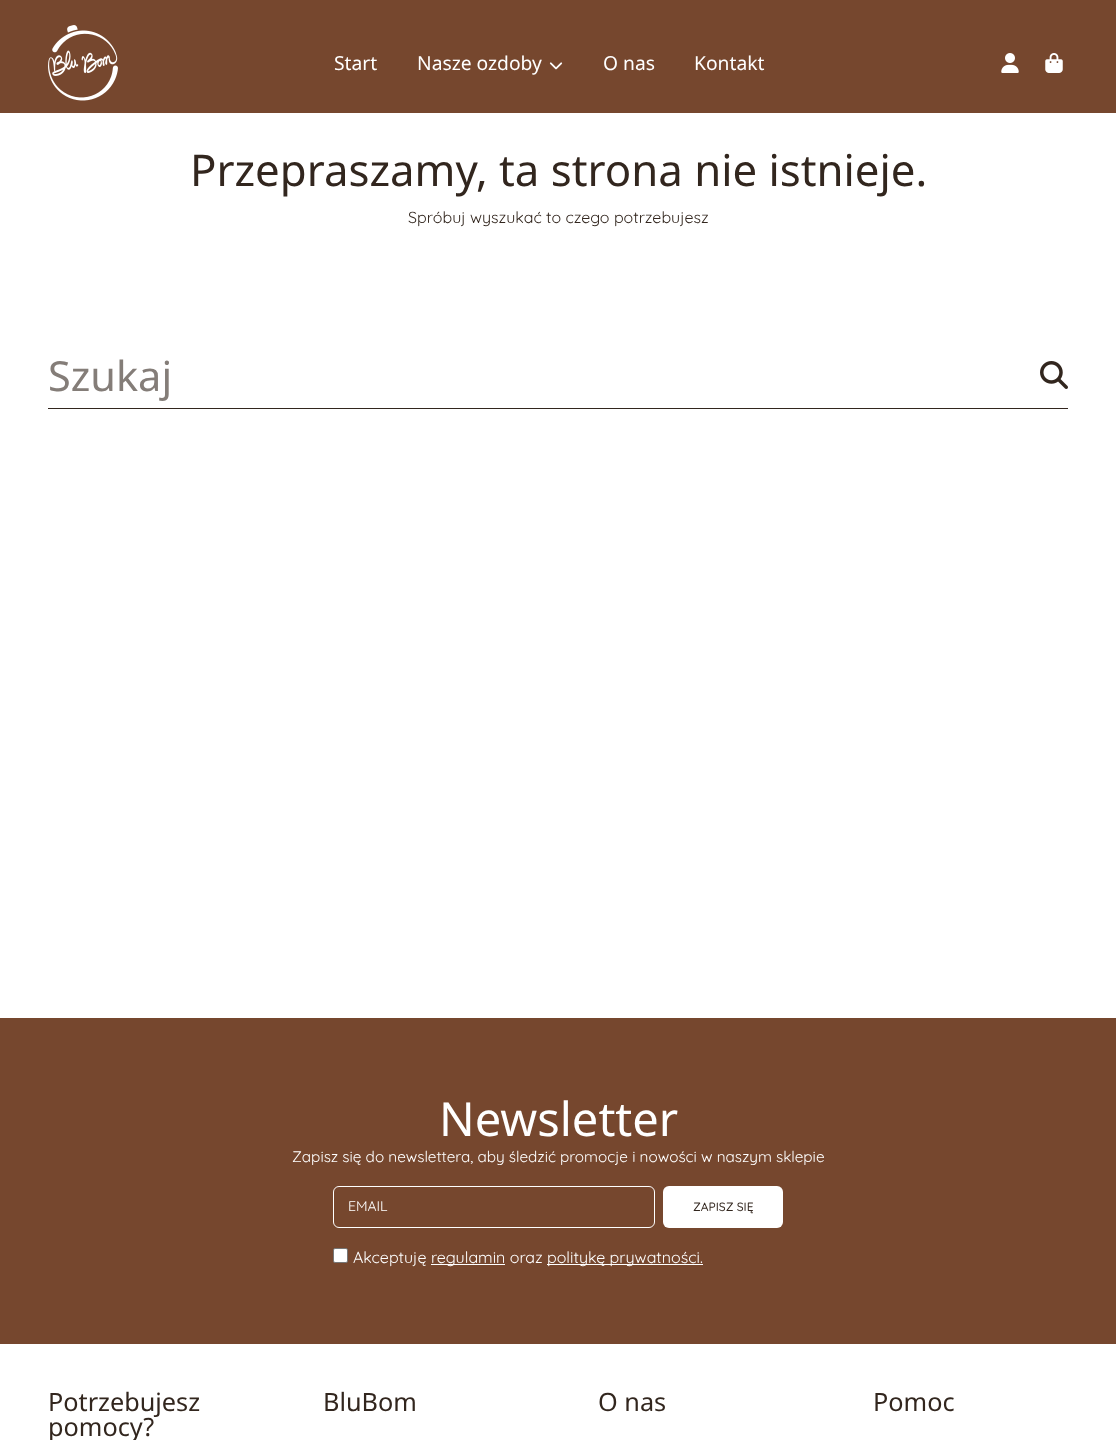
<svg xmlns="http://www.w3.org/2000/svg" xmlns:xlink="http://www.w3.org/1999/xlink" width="1116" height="1440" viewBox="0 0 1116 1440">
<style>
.cls-1{font:19.25px Noto Sans;fill:#ffffff}
.cls-2{font:43.75px Noto Sans;fill:#32261e}
.cls-3{font:16px Quicksand;fill:#32261e}
.cls-4{font:41.5px Noto Sans;fill:#847d78}
.cls-5{font:47px Noto Sans;fill:#ffffff}
.cls-6{font:15.3px Quicksand;fill:#ffffff}
.cls-7{font:14px Quicksand;fill:#ffffff}
.cls-8{font:500 12px Quicksand;fill:#32261e}
.cls-9{font:16px Quicksand;fill:#ffffff}
.cls-10{font:25.25px Noto Sans;fill:#32261e}
</style>
<rect width="100%" height="100%" fill="#ffffff"/>
<rect fill="#76472e" x="0" y="0" width="1116" height="113"/>
<image xlink:href="image0.png" x="48" y="25" width="70" height="76"/>
<image xlink:href="image1.png" x="549" y="62" width="14" height="8"/>
<image xlink:href="image2.png" x="1001" y="53" width="18" height="20"/>
<image xlink:href="image3.png" x="1045" y="53" width="18" height="20"/>
<rect fill="#32261e" x="48" y="408" width="1020" height="1"/>
<image xlink:href="image4.png" x="1040" y="361" width="28" height="28"/>
<rect fill="#76472e" x="0" y="1018" width="1116" height="326"/>
<rect fill="none" stroke="#ffffff" x="333.5" y="1186.5" width="321" height="41" rx="5.5"/>
<rect fill="#ffffff" x="663" y="1186" width="120" height="42" rx="6"/>
<rect fill="#ffffff" stroke="#767676" x="333.5" y="1248.5" width="14" height="14" rx="1.5"/>
<rect fill="#ffffff" x="431" y="1264" width="74" height="1"/>
<rect fill="#ffffff" x="547" y="1264" width="156" height="1"/>
<text class="cls-1" x="334" y="70">Start</text>
<text class="cls-1" x="417" y="70">Nasze ozdoby</text>
<text class="cls-1" x="603" y="70">O nas</text>
<text class="cls-1" x="694" y="70">Kontakt</text>
<text class="cls-2" x="190" y="186">Przepraszamy, ta strona nie istnieje.</text>
<text class="cls-3" x="408" y="223">Spróbuj wyszukać to czego potrzebujesz</text>
<text class="cls-4" x="48" y="391">Szukaj</text>
<text class="cls-5" x="439" y="1136">Newsletter</text>
<text class="cls-6" x="292" y="1162">Zapisz się do newslettera, aby śledzić promocje i nowości w naszym sklepie</text>
<text class="cls-7" x="348" y="1211">EMAIL</text>
<text class="cls-8" x="693" y="1211">ZAPISZ SIĘ</text>
<text class="cls-9" x="353" y="1263">Akceptuję</text>
<text class="cls-9" x="431" y="1263">regulamin oraz</text>
<text class="cls-9" x="547" y="1263">politykę prywatności.</text>
<text class="cls-10"><tspan x="48" y="1411">Potrzebujesz</tspan><tspan x="48" y="1436">pomocy?</tspan></text>
<text class="cls-10" x="323" y="1411">BluBom</text>
<text class="cls-10" x="598" y="1411">O nas</text>
<text class="cls-10" x="873" y="1411">Pomoc</text>
</svg>
